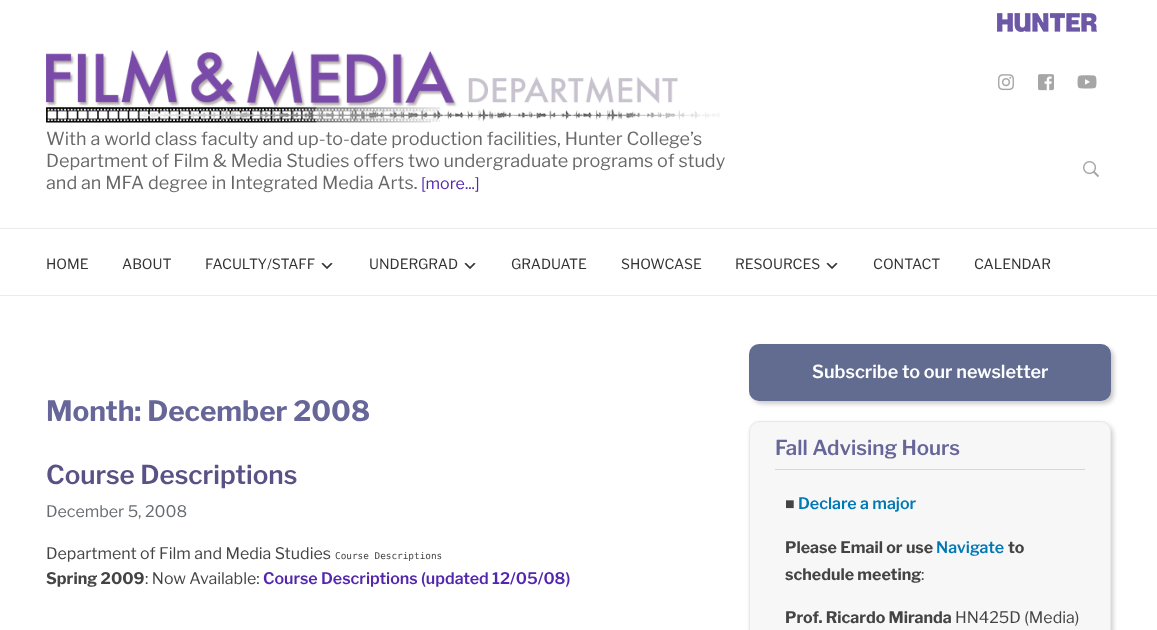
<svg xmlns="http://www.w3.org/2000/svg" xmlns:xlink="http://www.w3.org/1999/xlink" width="1157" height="630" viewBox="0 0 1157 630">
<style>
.cls-1{font:18px Libre Franklin;fill:#686868}
.cls-2{font:16px Libre Franklin;fill:#5326ad}
.cls-3{font:14px Libre Franklin;fill:#333333}
.cls-4{font:bold 28px Libre Franklin;fill:#666699}
.cls-5{font:600 26px Libre Franklin;fill:#5a5285}
.cls-6{font:16px Libre Franklin;fill:#676c71}
.cls-7{font:16px Libre Franklin;fill:#444444}
.cls-8{font:9.4px DejaVu Sans Mono;fill:#444444}
.cls-9{font:bold 16px Libre Franklin;fill:#444444}
.cls-10{font:600 16px Libre Franklin;fill:#5326ad}
.cls-11{font:600 18px Libre Franklin;fill:#ffffff}
.cls-12{font:600 20.5px Libre Franklin;fill:#666699}
.cls-13{font:16px Liberation Sans;fill:#444444}
.cls-14{font:600 16px Libre Franklin;fill:#0078b4}
</style>
<rect width="100%" height="100%" fill="#ffffff"/>
<image xlink:href="image0.png" x="997" y="13" width="100" height="19"/>
<image xlink:href="image1.png" x="998" y="74" width="16" height="17"/>
<image xlink:href="image2.png" x="1038" y="74" width="16" height="17"/>
<image xlink:href="image3.png" x="1077" y="75" width="20" height="14"/>
<image xlink:href="image4.png" x="46" y="50" width="675" height="73"/>
<rect fill="#ebebeb" x="0" y="228" width="1157" height="1"/>
<rect fill="#ebebeb" x="0" y="295" width="1157" height="1"/>
<image xlink:href="image5.png" x="1083" y="161" width="16" height="16"/>
<image xlink:href="image6.png" x="321" y="262" width="12" height="7"/>
<image xlink:href="image6.png" x="464" y="262" width="12" height="7"/>
<image xlink:href="image6.png" x="826" y="262" width="12" height="7"/>
<rect fill="#cccccc" filter="blur(2px)" x="752" y="347" width="362" height="57" rx="10"/>
<rect fill="#626c90" x="749" y="344" width="362" height="57" rx="10"/>
<rect fill="#cccccc" filter="blur(2.5px)" x="751" y="424" width="362" height="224" rx="10"/>
<rect fill="#f7f7f7" x="749" y="421" width="362" height="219" rx="10"/>
<rect fill="none" stroke="#cccccc" stroke-opacity="0.33" x="749.5" y="421.5" width="361" height="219" rx="9.5"/>
<rect fill="#d6d6d6" x="775" y="469" width="310" height="1"/>
<text class="cls-1"><tspan x="46" y="145">With a world class faculty and up-to-date production facilities, Hunter College’s</tspan><tspan x="46" y="167">Department of Film &amp; Media Studies offers two undergraduate programs of study</tspan><tspan x="46" y="189">and an MFA degree in Integrated Media Arts.</tspan></text>
<text class="cls-2" x="421" y="189">[more...]</text>
<text class="cls-3" x="46" y="269">HOME</text>
<text class="cls-3" x="122" y="269">ABOUT</text>
<text class="cls-3" x="205" y="269">FACULTY/STAFF</text>
<text class="cls-3" x="369" y="269">UNDERGRAD</text>
<text class="cls-3" x="511" y="269">GRADUATE</text>
<text class="cls-3" x="621" y="269">SHOWCASE</text>
<text class="cls-3" x="735" y="269">RESOURCES</text>
<text class="cls-3" x="873" y="269">CONTACT</text>
<text class="cls-3" x="974" y="269">CALENDAR</text>
<text class="cls-4" x="46" y="421">Month: December 2008</text>
<text class="cls-5" x="46" y="484">Course Descriptions</text>
<text class="cls-6" x="46" y="517">December 5, 2008</text>
<text class="cls-7" x="46" y="559">Department of Film and Media Studies</text>
<text class="cls-8" x="335" y="559">Course Descriptions</text>
<text class="cls-9" x="46" y="584">Spring 2009</text>
<text class="cls-7" x="145" y="584">: Now Available:</text>
<text class="cls-10" x="263" y="584">Course Descriptions (updated 12/05/08)</text>
<text class="cls-11" x="812" y="378">Subscribe to our newsletter</text>
<text class="cls-12" x="775" y="455">Fall Advising Hours</text>
<text class="cls-13" x="785" y="509">■</text>
<text class="cls-14" x="798" y="509">Declare a major</text>
<text class="cls-9" x="785" y="553">Please Email or use</text>
<text class="cls-14" x="936" y="553">Navigate</text>
<text class="cls-9" x="1008" y="553">to</text>
<text class="cls-9" x="785" y="580">schedule meeting</text>
<text class="cls-7" x="921" y="580">:</text>
<text class="cls-9" x="785" y="623">Prof. Ricardo Miranda</text>
<text class="cls-7" x="955" y="623">HN425D (Media)</text>
</svg>
